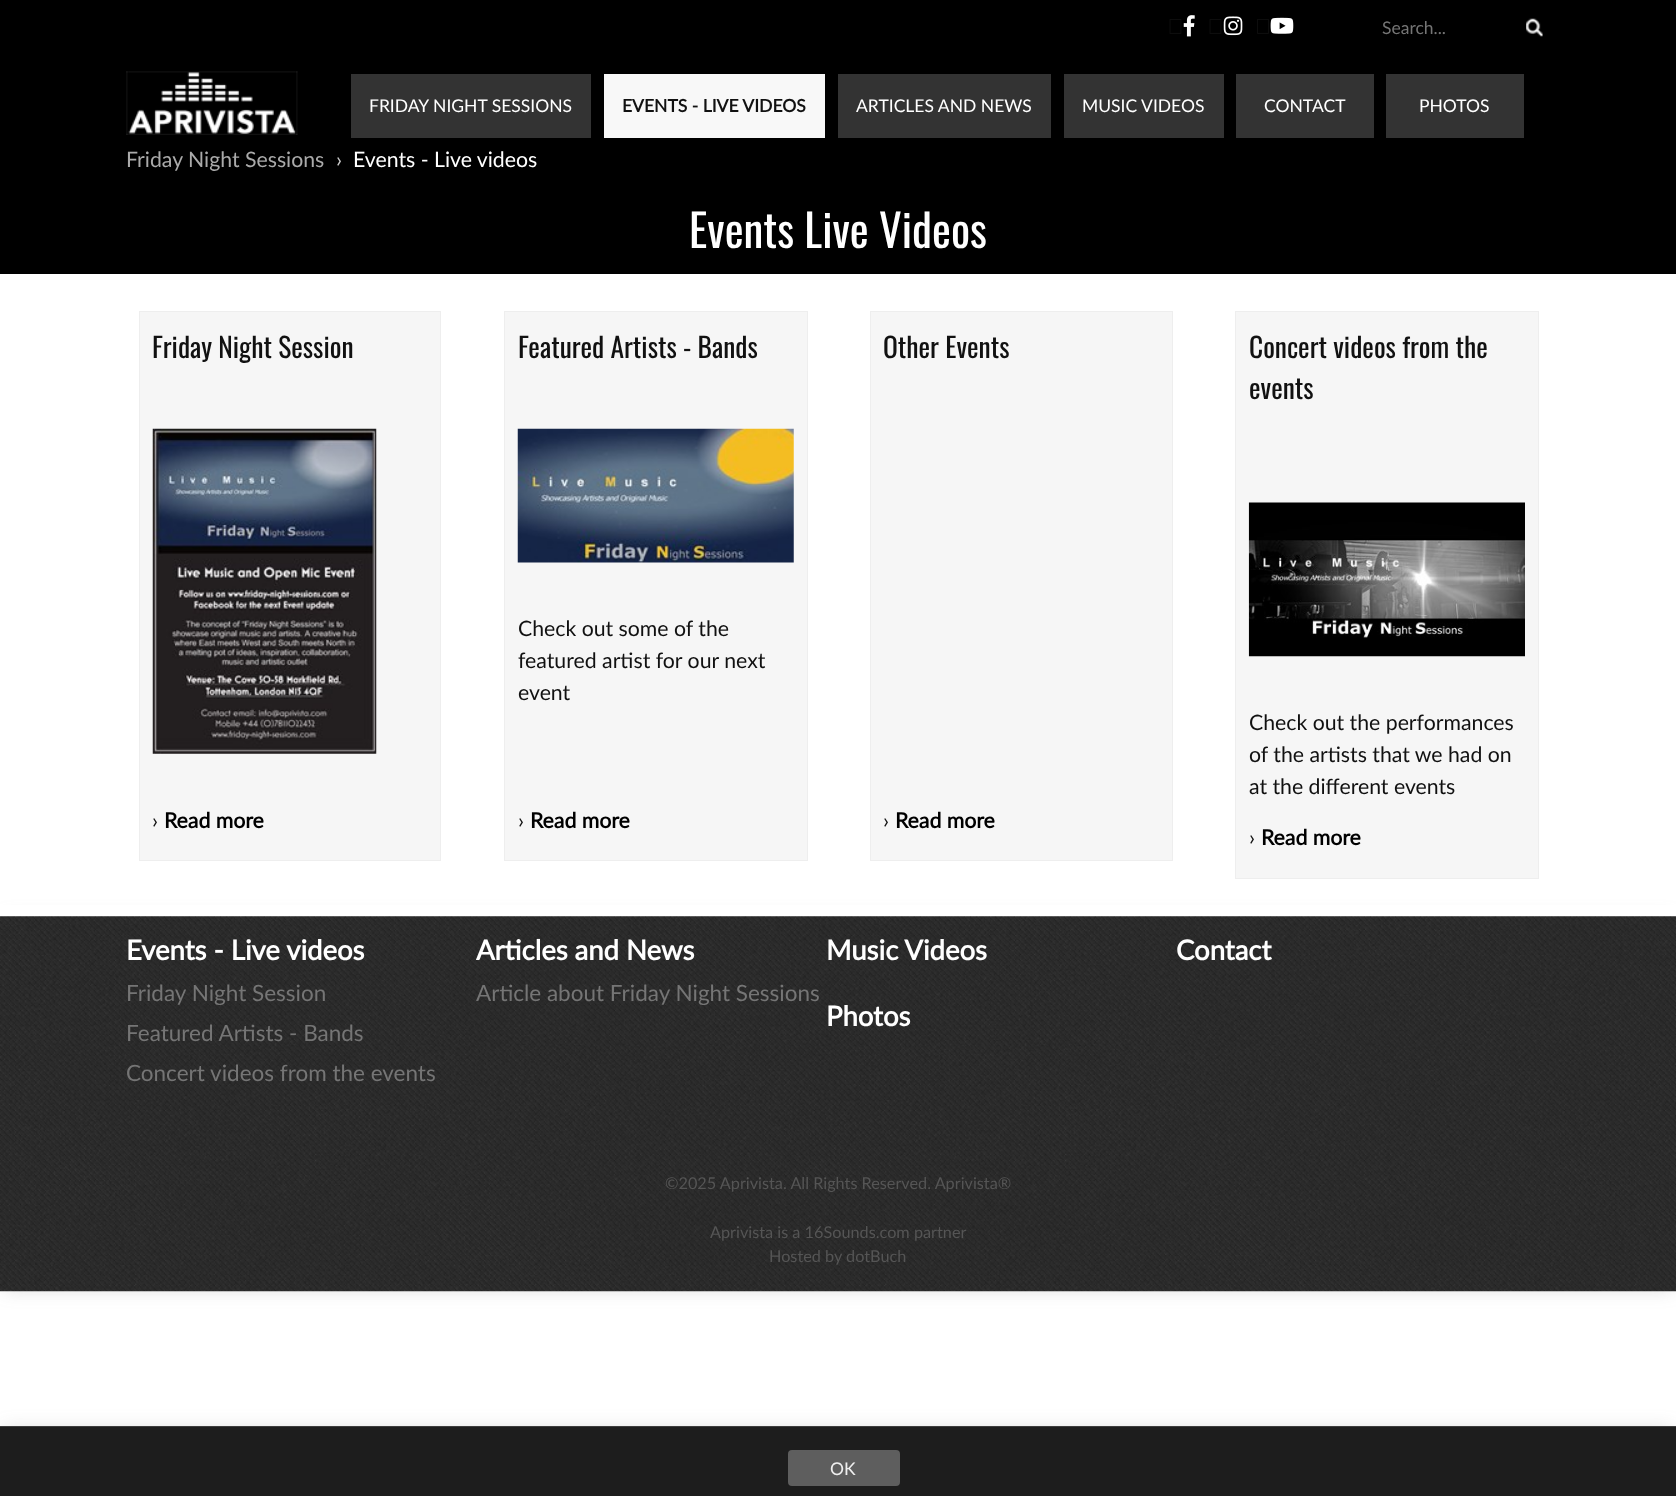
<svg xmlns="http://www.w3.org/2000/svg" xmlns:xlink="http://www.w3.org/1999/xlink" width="1676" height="1496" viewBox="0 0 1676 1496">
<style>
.cls-1{font:17.5px Lato;fill:#757575}
.cls-2{font:17.5px Lato;fill:#ffffff}
.cls-3{font:bold 17.5px Lato;fill:#111111}
.cls-4{font:21.25px Lato;fill:#aaaaaa}
.cls-5{font:21.25px Lato;fill:#cccccc}
.cls-6{font:21.25px Lato;fill:#ffffff}
.cls-7{font:45px Oswald;fill:#ffffff}
.cls-8{font:27.5px Oswald;fill:#111111}
.cls-9{font:21.25px Lato;fill:#111111}
.cls-10{font:bold 21.25px Lato;fill:#000000}
.cls-11{font:bold 27.5px Lato;fill:#ffffff}
.cls-12{font:22.5px Lato;fill:#757575}
.cls-13{font:16.25px Lato;fill:#555555}
.cls-14{font:17.5px Lato;fill:#efefef}
</style>
<rect width="100%" height="100%" fill="#ffffff"/>
<rect fill="#000000" x="0" y="0" width="1676" height="274"/>
<image xlink:href="image0.png" x="1169" y="19" width="13" height="15"/>
<image xlink:href="image1.png" x="1183" y="15" width="12" height="22"/>
<image xlink:href="image0.png" x="1209" y="19" width="13" height="15"/>
<image xlink:href="image2.png" x="1223" y="16" width="20" height="20"/>
<image xlink:href="image3.png" x="1257" y="19" width="12" height="15"/>
<image xlink:href="image4.png" x="1270" y="17" width="24" height="17"/>
<image xlink:href="image5.png" x="1526" y="18" width="17" height="19"/>
<image xlink:href="image6.png" x="126" y="71" width="172" height="64"/>
<rect fill="#333333" x="351" y="74" width="240" height="64"/>
<rect fill="#f8f8f8" x="604" y="74" width="221" height="64"/>
<rect fill="#333333" x="838" y="74" width="213" height="64"/>
<rect fill="#333333" x="1064" y="74" width="160" height="64"/>
<rect fill="#333333" x="1236" y="74" width="138" height="64"/>
<rect fill="#333333" x="1386" y="74" width="138" height="64"/>
<rect fill="#6b6b6b" fill-opacity="0.28" filter="blur(9.5px)" x="4" y="920" width="1669" height="368"/>
<rect fill="#ffffff" x="0" y="905" width="1676" height="11"/>
<rect fill="#f6f6f6" stroke="#eeeeee" x="139.5" y="311.5" width="301" height="549"/>
<image xlink:href="image7.png" x="152" y="428" width="225" height="326"/>
<rect fill="#f6f6f6" stroke="#eeeeee" x="504.5" y="311.5" width="303" height="549"/>
<image xlink:href="image8.png" x="517" y="428" width="277" height="135"/>
<rect fill="#f6f6f6" stroke="#eeeeee" x="870.5" y="311.5" width="302" height="549"/>
<rect fill="#f6f6f6" stroke="#eeeeee" x="1235.5" y="311.5" width="303" height="567"/>
<image xlink:href="image9.png" x="1248" y="502" width="277" height="155"/>
<image xlink:href="image10.png" x="0" y="916" width="1676" height="376"/>
<rect fill="#727272" fill-opacity="0.28" filter="blur(9.5px)" x="4" y="1430" width="1669" height="63"/>
<rect fill="#1d1d1d" x="0" y="1427" width="1676" height="69"/>
<rect fill="#3d3d3d" x="0" y="1426" width="1676" height="1"/>
<rect fill="#5e5e5e" x="788" y="1450" width="112" height="36" rx="4"/>
<text class="cls-1" x="1382" y="34">Search...</text>
<text class="cls-2" x="369" y="112">FRIDAY NIGHT SESSIONS</text>
<text class="cls-3" x="622" y="112">EVENTS - LIVE VIDEOS</text>
<text class="cls-2" x="856" y="112">ARTICLES AND NEWS</text>
<text class="cls-2" x="1082" y="112">MUSIC VIDEOS</text>
<text class="cls-2" x="1264" y="112">CONTACT</text>
<text class="cls-2" x="1419" y="112">PHOTOS</text>
<text class="cls-4" x="126" y="167">Friday Night Sessions</text>
<text class="cls-5" x="336" y="167">›</text>
<text class="cls-6" x="353" y="167">Events - Live videos</text>
<text class="cls-7" x="689" y="248">Events Live Videos</text>
<text class="cls-8" x="152" y="358">Friday Night Session</text>
<text class="cls-9" x="152" y="828">›</text>
<text class="cls-10" x="164" y="828">Read more</text>
<text class="cls-8" x="518" y="358">Featured Artists - Bands</text>
<text class="cls-9"><tspan x="518" y="636">Check out some of the</tspan><tspan x="518" y="668">featured artist for our next</tspan><tspan x="518" y="700">event</tspan></text>
<text class="cls-9" x="518" y="828">›</text>
<text class="cls-10" x="530" y="828">Read more</text>
<text class="cls-8" x="883" y="358">Other Events</text>
<text class="cls-9" x="883" y="828">›</text>
<text class="cls-10" x="895" y="828">Read more</text>
<text class="cls-8"><tspan x="1249" y="358">Concert videos from the</tspan><tspan x="1249" y="399">events</tspan></text>
<text class="cls-9"><tspan x="1249" y="730">Check out the performances</tspan><tspan x="1249" y="762">of the artists that we had on</tspan><tspan x="1249" y="794">at the different events</tspan></text>
<text class="cls-9" x="1249" y="845">›</text>
<text class="cls-10" x="1261" y="845">Read more</text>
<text class="cls-11" x="126" y="960">Events - Live videos</text>
<text class="cls-12"><tspan x="126" y="1001">Friday Night Session</tspan><tspan x="126" y="1041">Featured Artists - Bands</tspan><tspan x="126" y="1081">Concert videos from the events</tspan></text>
<text class="cls-11" x="476" y="960">Articles and News</text>
<text class="cls-12" x="476" y="1001">Article about Friday Night Sessions</text>
<text class="cls-11" x="826" y="960">Music Videos</text>
<text class="cls-11" x="1176" y="960">Contact</text>
<text class="cls-11" x="826" y="1026">Photos</text>
<text class="cls-13" x="665" y="1189">©2025 Aprivista. All Rights Reserved. Aprivista®</text>
<text class="cls-13" x="710" y="1238">Aprivista is a 16Sounds.com partner</text>
<text class="cls-13" x="769" y="1262">Hosted by dotBuch</text>
<text class="cls-14" x="830" y="1475">OK</text>
</svg>
